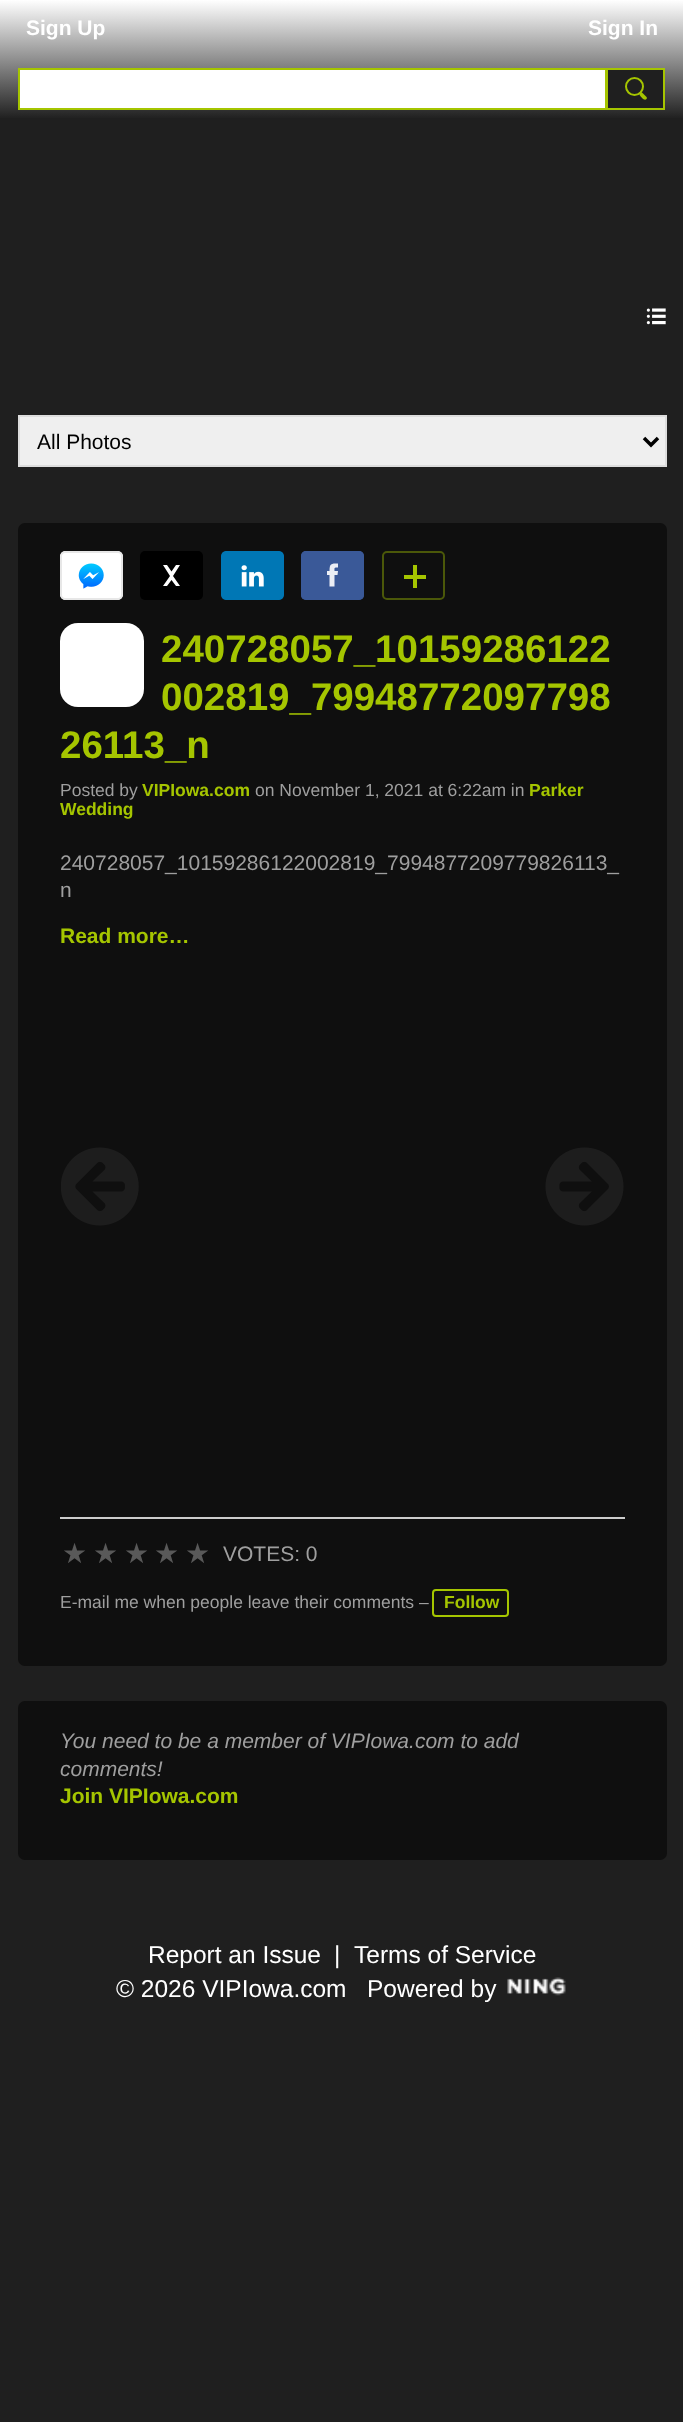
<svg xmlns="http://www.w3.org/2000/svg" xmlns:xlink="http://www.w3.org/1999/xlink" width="683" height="2422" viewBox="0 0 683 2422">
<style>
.cls-1{font:bold 21px Liberation Sans;fill:#ffffff}
.cls-2{font:21px Liberation Sans;fill:#000000}
.cls-3{font:bold 38.5px Liberation Sans;fill:#a5c500}
.cls-4{font:17.5px Liberation Sans;fill:#9f9f9f}
.cls-5{font:bold 17.5px Liberation Sans;fill:#a5c500}
.cls-6{font:21px Liberation Sans;fill:#9f9f9f}
.cls-7{font:bold 21px Liberation Sans;fill:#a5c500}
.cls-8{font:28px DejaVu Sans;fill:#595959}
.cls-9{font:italic 21px Liberation Sans;fill:#9f9f9f}
.cls-10{font:24.5px Liberation Sans;fill:#ffffff}
</style>
<defs>
<linearGradient id="g1" gradientUnits="userSpaceOnUse" x1="342" y1="0" x2="342" y2="119"><stop offset="0" stop-color="#ffffff"/><stop offset="1" stop-color="#1f1f1f"/></linearGradient>
</defs>
<rect width="100%" height="100%" fill="#1f1f1f"/>
<rect fill="url(#g1)" x="0" y="0" width="683" height="118"/>
<rect fill="#ffffff" stroke="#a5c500" stroke-width="2" x="19" y="69" width="587" height="40"/>
<rect fill="#1f1f1f" stroke="#a5c500" stroke-width="2" x="607" y="69" width="57" height="40"/>
<circle fill="none" stroke="#a5c500" stroke-width="2" cx="634.5" cy="86.5" r="8.5"/>
<path fill="#a5c500" d="M642.5 93L646.5 97C647 97.5 647 98.5 646.5 99C644.5 101.5 641 97 640 95.5C638.5 94 641 91.5 642.5 93Z"/>
<image xlink:href="image0.png" x="646" y="308" width="20" height="17"/>
<rect fill="#efefef" stroke="#dddddd" stroke-width="2" x="19" y="416" width="647" height="50"/>
<path fill="none" stroke="#000000" stroke-width="3.5" d="M644 438L651 445L658 438"/>
<rect fill="#0f0f0f" x="18" y="523" width="649" height="1143" rx="7"/>
<image xlink:href="image1.png" x="60" y="551" width="63" height="49"/>
<rect fill="#000000" x="140" y="551" width="63" height="49" rx="5"/>
<path fill="#ffffff" fill-rule="evenodd" d="M163 565L170 576L163 586H167L171.5 580L176 586H180L173 576L180 565H176L171.5 571.5L167 565Z"/>
<image xlink:href="image2.png" x="221" y="551" width="63" height="49"/>
<rect fill="#3b5998" x="301" y="551" width="63" height="49" rx="5"/>
<rect fill="#3b5998" fill-opacity="0.9" x="301" y="551" width="63" height="49" rx="5"/>
<path fill="#ebeef5" d="M334.5 586.5V575H337.5L338 571H334.5C334.5 567.5 334 567.5 338 567.5V563.5C331 563.5 329.5 563.5 329.5 571H327V575H329.5V586.5Z"/>
<rect fill="none" stroke="#4b5809" stroke-width="2" x="383" y="552" width="61" height="47" rx="4"/>
<rect fill="#a5c500" x="413" y="565" width="4" height="23"/>
<rect fill="#a5c500" x="404" y="575" width="22" height="4"/>
<rect fill="#ffffff" x="60" y="623" width="84" height="84" rx="18"/>
<image xlink:href="image3.png" x="61" y="1147" width="78" height="79"/>
<image xlink:href="image4.png" x="545" y="1147" width="79" height="79"/>
<rect fill="#cccccc" x="60" y="1517" width="565" height="2"/>
<rect fill="none" stroke="#a5c500" stroke-width="2" x="433" y="1590" width="75" height="26" rx="3"/>
<rect fill="#0f0f0f" x="18" y="1701" width="649" height="159" rx="7"/>
<image xlink:href="image5.png" x="507" y="1977" width="59" height="19"/>
<text class="cls-1" x="26" y="35">Sign Up</text>
<text class="cls-1" x="588" y="35">Sign In</text>
<text class="cls-2" x="37" y="449">All Photos</text>
<text class="cls-3"><tspan x="161" y="662">240728057_10159286122</tspan><tspan x="161" y="710">002819_79948772097798</tspan></text>
<text class="cls-3" x="60" y="758">26113_n</text>
<text class="cls-4" x="60" y="796">Posted by</text>
<text class="cls-5" x="142" y="796">VIPIowa.com</text>
<text class="cls-4" x="255" y="796">on November 1, 2021 at 6:22am in</text>
<text class="cls-5" x="529" y="796">Parker</text>
<text class="cls-5" x="60" y="815">Wedding</text>
<text class="cls-6"><tspan x="60" y="870">240728057_10159286122002819_7994877209779826113_</tspan><tspan x="60" y="897">n</tspan></text>
<text class="cls-7" x="60" y="943">Read more…</text>
<text class="cls-8" x="62" y="1563">★</text>
<text class="cls-8" x="93" y="1563">★</text>
<text class="cls-8" x="124" y="1563">★</text>
<text class="cls-8" x="154" y="1563">★</text>
<text class="cls-8" x="185" y="1563">★</text>
<text class="cls-6" x="223" y="1561">VOTES: 0</text>
<text class="cls-4" x="60" y="1608">E-mail me when people leave their comments –</text>
<text class="cls-5" x="444" y="1608">Follow</text>
<text class="cls-9"><tspan x="60" y="1748">You need to be a member of VIPIowa.com to add</tspan><tspan x="60" y="1776">comments!</tspan></text>
<text class="cls-7" x="60" y="1803">Join VIPIowa.com</text>
<text class="cls-10" x="148" y="1963">Report an Issue</text>
<text class="cls-10" x="334" y="1963">|</text>
<text class="cls-10" x="354" y="1963">Terms of Service</text>
<text class="cls-10" x="116" y="1997">© 2026 VIPIowa.com</text>
<text class="cls-10" x="367" y="1997">Powered by</text>
</svg>
